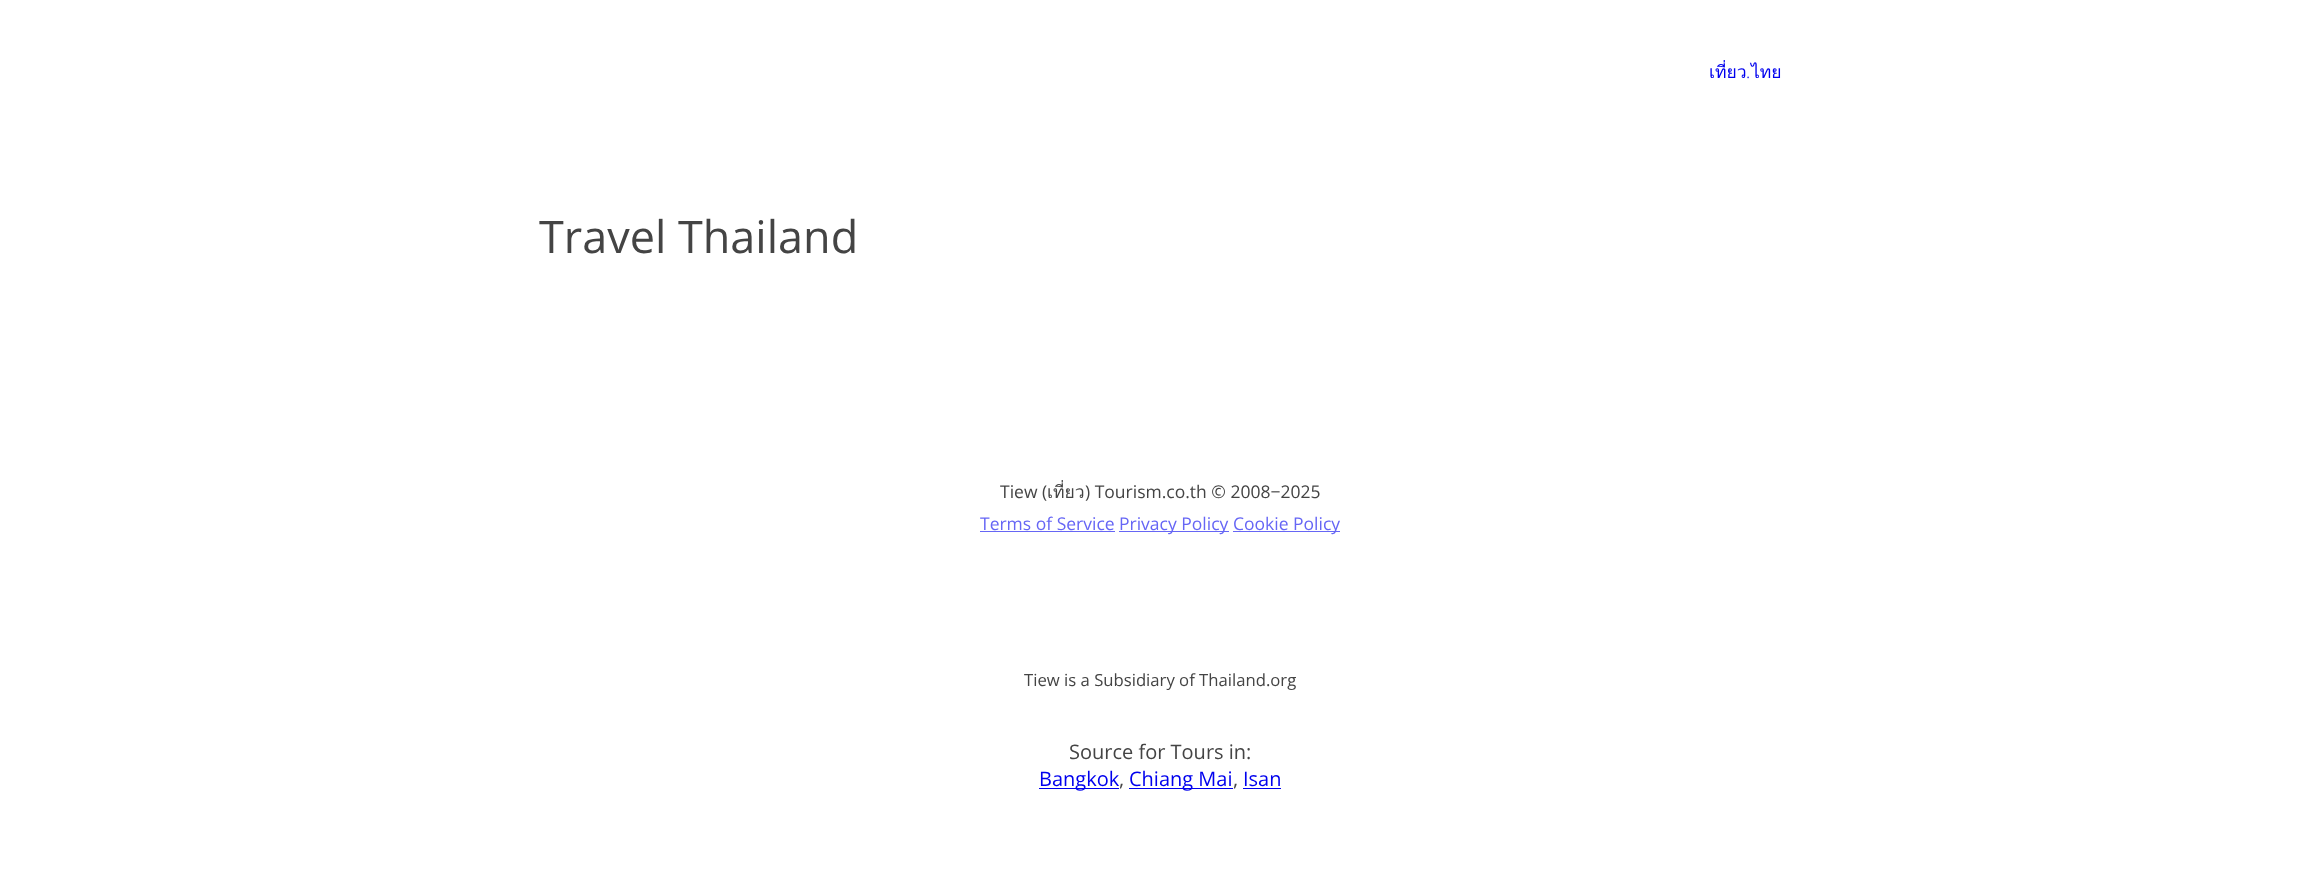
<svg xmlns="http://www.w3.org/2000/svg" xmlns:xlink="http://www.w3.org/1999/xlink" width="2320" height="872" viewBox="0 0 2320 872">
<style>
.cls-1{font:17.5px Loma;fill:#0000ee}
.cls-2{font:300 17.5px Open Sans;fill:#0000ee}
.cls-3{font:45px Open Sans;fill:#444444}
.cls-4{font:17.5px Open Sans;fill:#444444}
.cls-5{font:17.5px Loma;fill:#444444}
.cls-6{font:17.5px Open Sans;fill:#6666f5}
.cls-7{font:16.7px Open Sans;fill:#444444}
.cls-8{font:20px Open Sans;fill:#444444}
.cls-9{font:20px Open Sans;fill:#0000ee}
</style>
<rect width="100%" height="100%" fill="#ffffff"/>
<rect fill="#6666f5" x="980" y="531" width="135" height="1"/>
<rect fill="#6666f5" x="1119" y="531" width="110" height="1"/>
<rect fill="#6666f5" x="1233" y="531" width="107" height="1"/>
<rect fill="#0000ee" x="1039" y="788" width="80" height="1"/>
<rect fill="#0000ee" x="1129" y="788" width="104" height="1"/>
<rect fill="#0000ee" x="1243" y="788" width="38" height="1"/>
<text class="cls-1" x="1709" y="78">เที่ยว</text>
<text class="cls-2" x="1746" y="78">.</text>
<text class="cls-1" x="1751" y="78">ไทย</text>
<text class="cls-3" x="539" y="253">Travel Thailand</text>
<text class="cls-4" x="1000" y="498">Tiew (</text>
<text class="cls-5" x="1047" y="498">เที่ยว</text>
<text class="cls-4" x="1085" y="498">) Tourism.co.th © 2008−2025</text>
<text class="cls-6" x="980" y="530">Terms of Service</text>
<text class="cls-6" x="1119" y="530">Privacy Policy</text>
<text class="cls-6" x="1233" y="530">Cookie Policy</text>
<text class="cls-7" x="1024" y="686">Tiew is a Subsidiary of Thailand.org</text>
<text class="cls-8" x="1069" y="759">Source for Tours in:</text>
<text class="cls-9" x="1039" y="786">Bangkok</text>
<text class="cls-8" x="1119" y="786">,</text>
<text class="cls-9" x="1129" y="786">Chiang Mai</text>
<text class="cls-8" x="1233" y="786">,</text>
<text class="cls-9" x="1243" y="786">Isan</text>
</svg>
